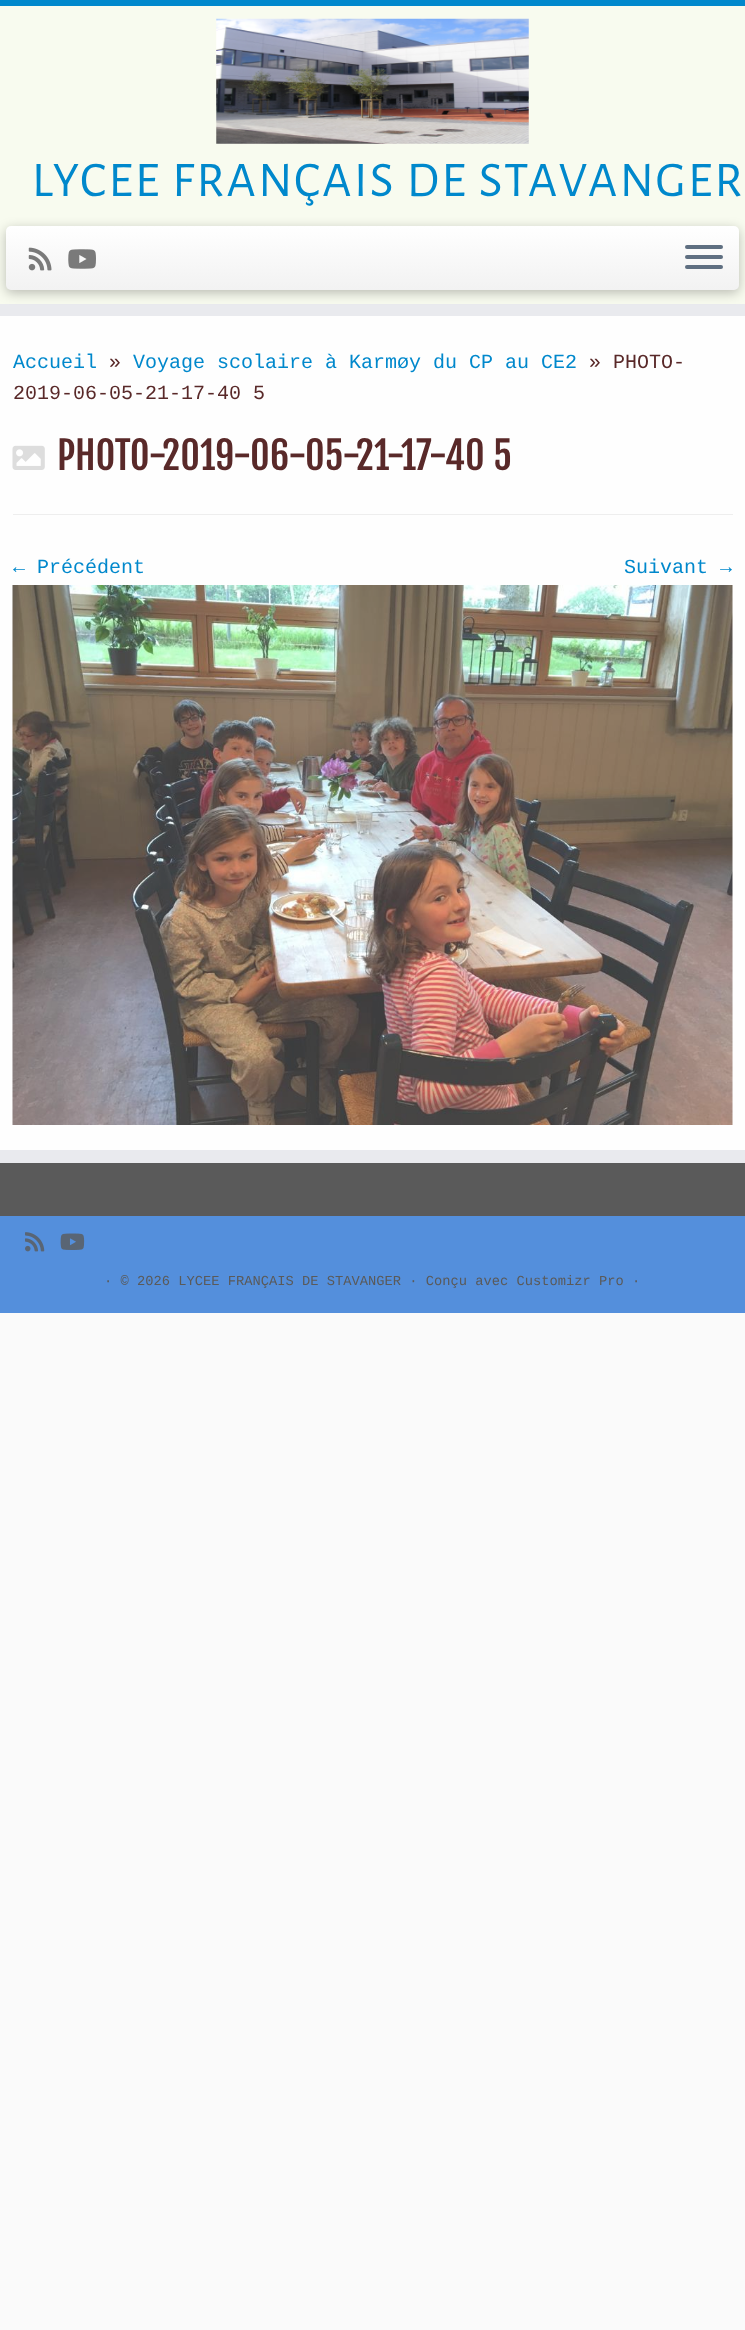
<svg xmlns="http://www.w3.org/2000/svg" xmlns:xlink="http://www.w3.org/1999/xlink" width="745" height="2330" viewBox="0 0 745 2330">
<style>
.cls-1{font:50px Alegreya Sans SC;letter-spacing:2.5px;fill:#0088cc}
.cls-2{font:20px Liberation Mono;fill:#0088cc}
.cls-3{font:20px Liberation Mono;fill:#592929}
.cls-4{font:38px Fjalla One;fill:#592929}
.cls-5{font:13.75px Liberation Mono;fill:#5a5a5a}
</style>
<defs>
<linearGradient id="g1" gradientUnits="userSpaceOnUse" x1="373" y1="226" x2="373" y2="290"><stop offset="0" stop-color="#ffffff"/><stop offset="1" stop-color="#f2f2f2"/></linearGradient>
</defs>
<rect width="100%" height="100%" fill="#fafafa"/>
<rect fill="#fefefe" x="0" y="316" width="745" height="834"/>
<rect fill="#f8fbef" x="0" y="6" width="745" height="298"/>
<rect fill="#0088cc" x="0" y="0" width="745" height="6"/>
<rect fill="#e9eaee" x="0" y="304" width="745" height="12"/>
<image xlink:href="image0.png" x="216" y="18" width="313" height="126"/>
<rect fill="#000000" fill-opacity="0.25" filter="blur(6px)" x="6" y="229" width="733" height="64" rx="5"/>
<rect fill="url(#g1)" x="6" y="226" width="733" height="64" rx="5"/>
<image xlink:href="image1.png" x="28" y="247" width="24" height="24"/>
<image xlink:href="image2.png" x="68" y="249" width="28" height="20"/>
<rect fill="#5f6f81" x="685" y="245" width="38" height="4" rx="2"/>
<rect fill="#5f6f81" x="685" y="255" width="38" height="4" rx="2"/>
<rect fill="#5f6f81" x="685" y="265" width="38" height="4" rx="2"/>
<image xlink:href="image3.png" x="12" y="445" width="33" height="25"/>
<rect fill="#eeeeee" x="13" y="514" width="720" height="1"/>
<image xlink:href="image4.png" x="12" y="585" width="721" height="540"/>
<rect fill="#5a5a5a" x="0" y="1163" width="745" height="53"/>
<rect fill="#e9eaee" x="0" y="1150" width="745" height="13"/>
<rect fill="#548fdc" x="0" y="1216" width="745" height="97"/>
<image xlink:href="image5.png" x="25" y="1232" width="20" height="20"/>
<image xlink:href="image6.png" x="60" y="1233" width="25" height="17"/>
<text class="cls-1" x="32" y="196">LYCEE FRANÇAIS DE STAVANGER</text>
<text class="cls-2" x="13" y="368">Accueil</text>
<text class="cls-3" x="109" y="368">»</text>
<text class="cls-2" x="133" y="368">Voyage scolaire à Karmøy du CP au CE2</text>
<text class="cls-3" x="589" y="368">» PHOTO-</text>
<text class="cls-3" x="13" y="399">2019-06-05-21-17-40 5</text>
<text class="cls-4" x="57" y="470">PHOTO-2019-06-05-21-17-40 5</text>
<text class="cls-2" x="13" y="573">← Précédent</text>
<text class="cls-2" x="624" y="573">Suivant →</text>
<text class="cls-5" x="104" y="1285">· © 2026 LYCEE FRANÇAIS DE STAVANGER · Conçu avec Customizr Pro ·</text>
</svg>
